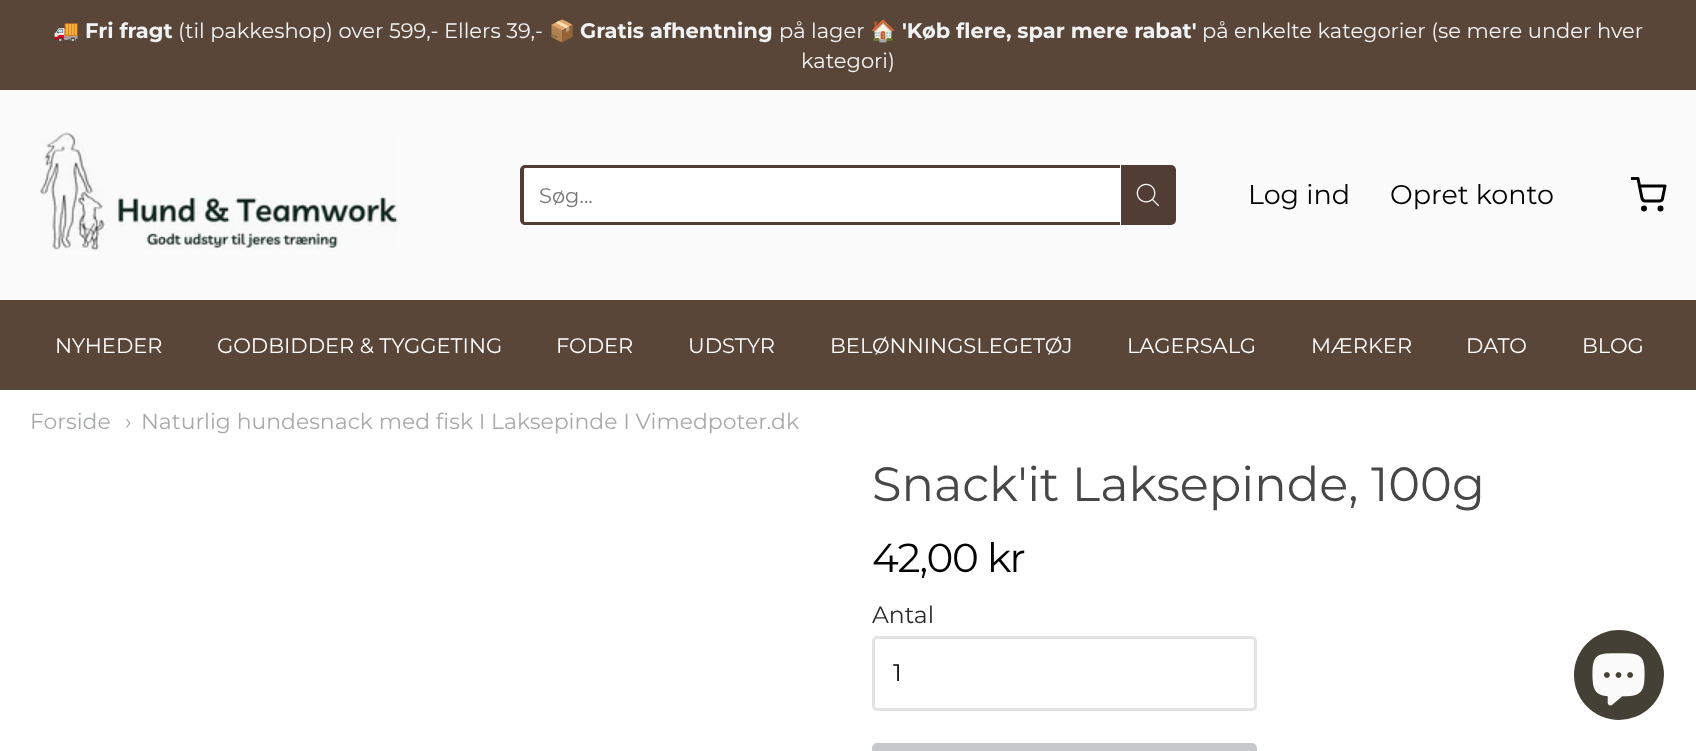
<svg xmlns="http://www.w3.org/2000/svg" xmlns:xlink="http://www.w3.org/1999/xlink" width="1696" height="751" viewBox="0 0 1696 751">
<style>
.cls-1{font:21px Noto Color Emoji;fill:#f1f2f3}
.cls-2{font:bold 21px Montserrat;fill:#f1f2f3}
.cls-3{font:21px Montserrat;fill:#f1f2f3}
.cls-4{font:21px Montserrat;fill:#777777}
.cls-5{font:27px Montserrat;fill:#030303}
.cls-6{font:21px Montserrat;fill:#ffffff}
.cls-7{font:21.95px Montserrat;fill:#a9aaaa}
.cls-8{font:48px Montserrat;fill:#474747}
.cls-9{font:40.5px Montserrat;letter-spacing:-1.25px;fill:#030303}
.cls-10{font:23.5px Montserrat;fill:#2a2b2b}
.cls-11{font:24px Montserrat;fill:#030303}
</style>
<defs>
<clipPath id="clip1"><rect x="1631" y="177" width="36" height="36"/></clipPath>
</defs>
<rect width="100%" height="100%" fill="#ffffff"/>
<rect fill="#5a4639" x="0" y="0" width="1696" height="90"/>
<rect fill="#fbfbfb" x="0" y="90" width="1696" height="210"/>
<image xlink:href="image0.png" x="40" y="131" width="358" height="120"/>
<path fill="#ffffff" d="M526 165H1121V225H526C523 225 521 223 521 220V170C521 167 523 165 526 165Z"/>
<path fill="#523d34" fill-rule="evenodd" d="M525 165H1120V225H525C523 225 520 223 520 220V170C520 167 523 165 525 165ZM525 168H1120V222H525C524 222 524 221 524 220V169Z"/>
<path fill="#523d34" stroke="#523d34" stroke-width="3" d="M1122.5 166.5H1171C1173 166.5 1174.5 168 1174.5 170V220C1174.5 222 1173 223.5 1171 223.5H1122.5Z"/>
<image xlink:href="image1.png" x="1136" y="183" width="24" height="24"/>
<g clip-path="url(#clip1)">
<path fill="none" stroke="#030303" stroke-width="3" stroke-linecap="round" stroke-linejoin="round" d="M1632 178.5H1638L1642 198.5C1642.5 200 1643.5 201 1645 201H1659.5C1661 201 1662.5 200 1662.5 198.5L1665 186H1639.5"/>
</g>
<circle fill="none" stroke="#030303" stroke-width="3" cx="1644" cy="208.5" r="1.5"/>
<circle fill="none" stroke="#030303" stroke-width="3" cx="1660.5" cy="208.5" r="1.5"/>
<rect fill="#5a4639" x="0" y="300" width="1696" height="90"/>
<rect fill="none" stroke="#e1e3e4" stroke-width="3" x="873.5" y="637.5" width="382" height="72" rx="3.5"/>
<rect fill="#c6c9cc" stroke="#c6c9cc" stroke-width="3" x="873.5" y="744.5" width="382" height="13" rx="3.5"/>
<circle fill="#444035" cx="1619" cy="675" r="45"/>
<image xlink:href="image2.png" x="1592" y="653" width="53" height="53"/>
<text class="cls-1" x="53" y="38">🚚</text>
<text class="cls-2" x="85" y="38">Fri fragt</text>
<text class="cls-3" x="178" y="38">(til pakkeshop) over 599,- Ellers 39,-</text>
<text class="cls-1" x="549" y="38">📦</text>
<text class="cls-2" x="580" y="38">Gratis afhentning</text>
<text class="cls-3" x="779" y="38">på lager</text>
<text class="cls-1" x="870" y="38">🏠</text>
<text class="cls-2" x="902" y="38">'Køb flere, spar mere rabat'</text>
<text class="cls-3" x="1202" y="38">på enkelte kategorier (se mere under hver</text>
<text class="cls-3" x="801" y="68">kategori)</text>
<text class="cls-4" x="539" y="203">Søg...</text>
<text class="cls-5" x="1248" y="204">Log ind</text>
<text class="cls-5" x="1390" y="204">Opret konto</text>
<text class="cls-6" x="55" y="353">NYHEDER</text>
<text class="cls-6" x="217" y="353">GODBIDDER &amp; TYGGETING</text>
<text class="cls-6" x="556" y="353">FODER</text>
<text class="cls-6" x="688" y="353">UDSTYR</text>
<text class="cls-6" x="830" y="353">BELØNNINGSLEGETØJ</text>
<text class="cls-6" x="1127" y="353">LAGERSALG</text>
<text class="cls-6" x="1311" y="353">MÆRKER</text>
<text class="cls-6" x="1466" y="353">DATO</text>
<text class="cls-6" x="1582" y="353">BLOG</text>
<text class="cls-7" x="30" y="429">Forside</text>
<text class="cls-7" x="125" y="429">›</text>
<text class="cls-7" x="141" y="429">Naturlig hundesnack med fisk I Laksepinde I Vimedpoter.dk</text>
<text class="cls-8" x="872" y="501">Snack'it Laksepinde, 100g</text>
<text class="cls-9" x="872" y="572">42,00 kr</text>
<text class="cls-10" x="872" y="623">Antal</text>
<text class="cls-11" x="893" y="681">1</text>
</svg>
